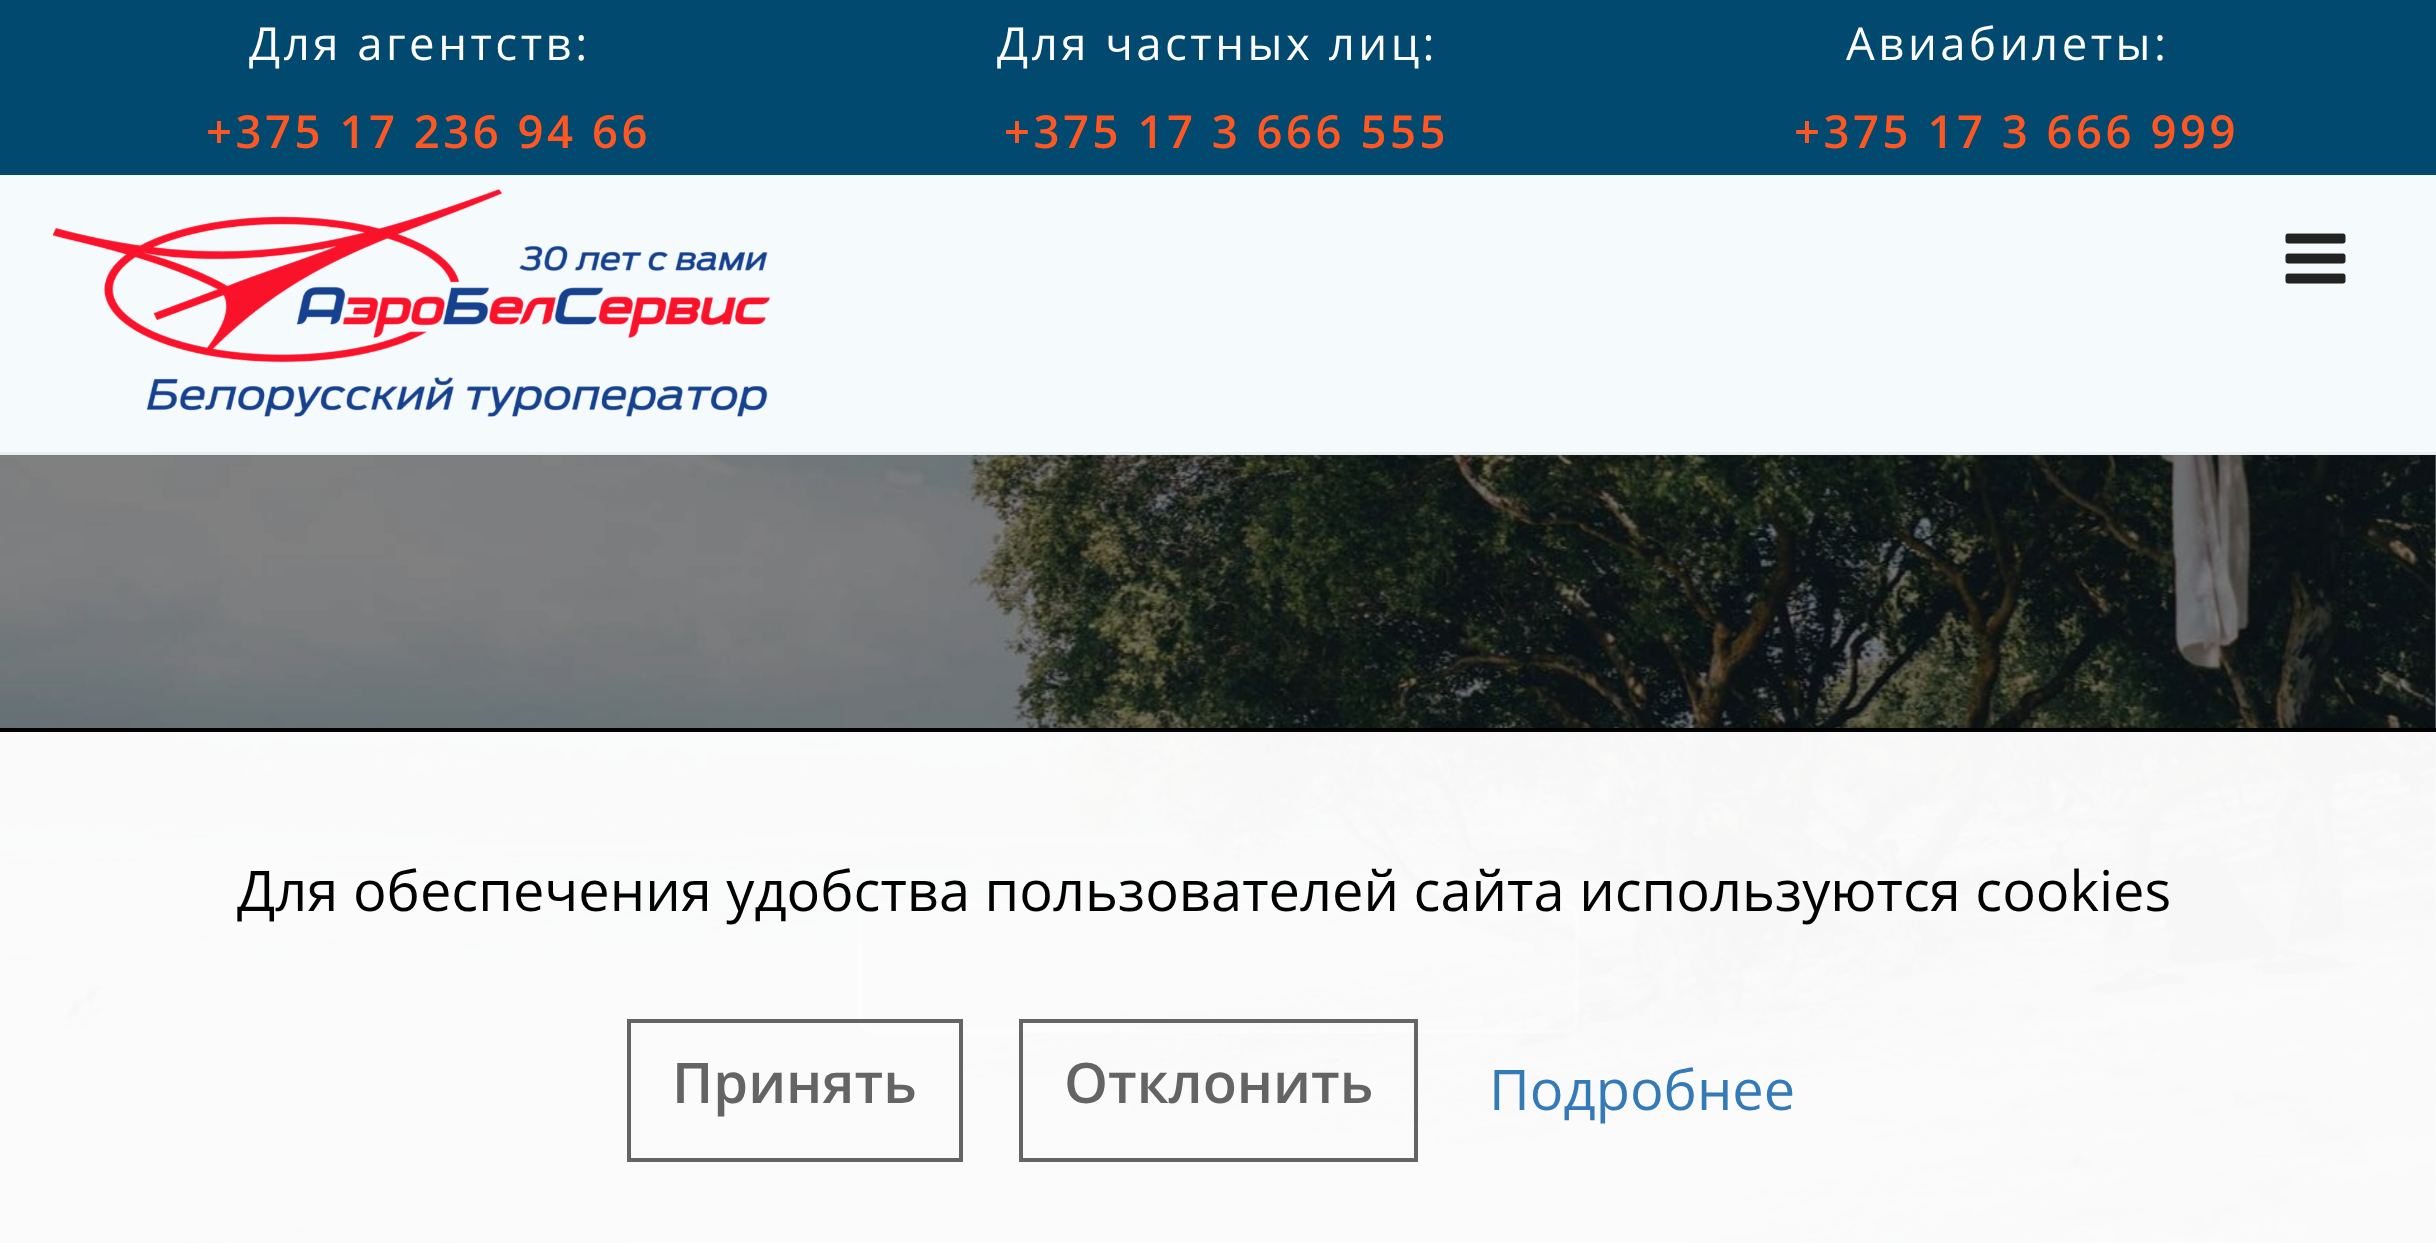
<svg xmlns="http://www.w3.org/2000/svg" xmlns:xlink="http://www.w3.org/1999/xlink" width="2436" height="1249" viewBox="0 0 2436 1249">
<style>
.cls-1{font:45.5px Open Sans;letter-spacing:3.5px;fill:#ffffff}
.cls-2{font:600 45.5px Open Sans;letter-spacing:3.5px;fill:#ff5722}
.cls-3{font:56px Open Sans;fill:#000000}
.cls-4{font:600 56px Open Sans;fill:#646464}
.cls-5{font:56px Open Sans;fill:#337ab7}
</style>
<rect width="100%" height="100%" fill="#ffffff"/>
<rect fill="#f5fafd" x="0" y="175" width="2436" height="280"/>
<image xlink:href="image2.png" x="0" y="455" width="2436" height="788"/>
<rect fill="#222222" fill-opacity="0.05" x="0" y="452" width="2436" height="4"/>
<rect fill="#01496e" x="0" y="0" width="2436" height="175"/>
<image xlink:href="image0.png" x="53" y="189" width="717" height="228"/>
<image xlink:href="image1.png" x="2285" y="233" width="61" height="51"/>
<rect fill="#ffffff" fill-opacity="0.1" x="858" y="903" width="721" height="130" rx="14"/>
<rect fill="none" stroke="#ffffff" stroke-opacity="0.3" stroke-width="4" x="860" y="905" width="717" height="126" rx="12"/>
<image xlink:href="image3.png" x="0" y="1242" width="2436" height="7"/>
<rect fill="#ffffff" fill-opacity="0.8" x="0" y="1243" width="2436" height="6"/>
<rect fill="#ffffff" fill-opacity="0.97" x="0" y="732" width="2436" height="517"/>
<rect fill="#000000" x="0" y="728" width="2436" height="4"/>
<rect fill="none" stroke="#646464" stroke-width="4" x="629" y="1021" width="332" height="139"/>
<rect fill="none" stroke="#000000" stroke-opacity="0.6" stroke-width="4" x="1021" y="1021" width="395" height="139"/>
<text class="cls-1" x="249" y="60">Для агентств:</text>
<text class="cls-2" x="206" y="148">+375 17 236 94 66</text>
<text class="cls-1" x="997" y="60">Для частных лиц:</text>
<text class="cls-2" x="1004" y="148">+375 17 3 666 555</text>
<text class="cls-1" x="1846" y="60">Авиабилеты:</text>
<text class="cls-2" x="1794" y="148">+375 17 3 666 999</text>
<text class="cls-3" x="237" y="911">Для обеспечения удобства пользователей сайта используются cookies</text>
<text class="cls-4" x="672" y="1103">Принять</text>
<text class="cls-4" x="1064" y="1103">Отклонить</text>
<text class="cls-5" x="1489" y="1110">Подробнее</text>
</svg>
